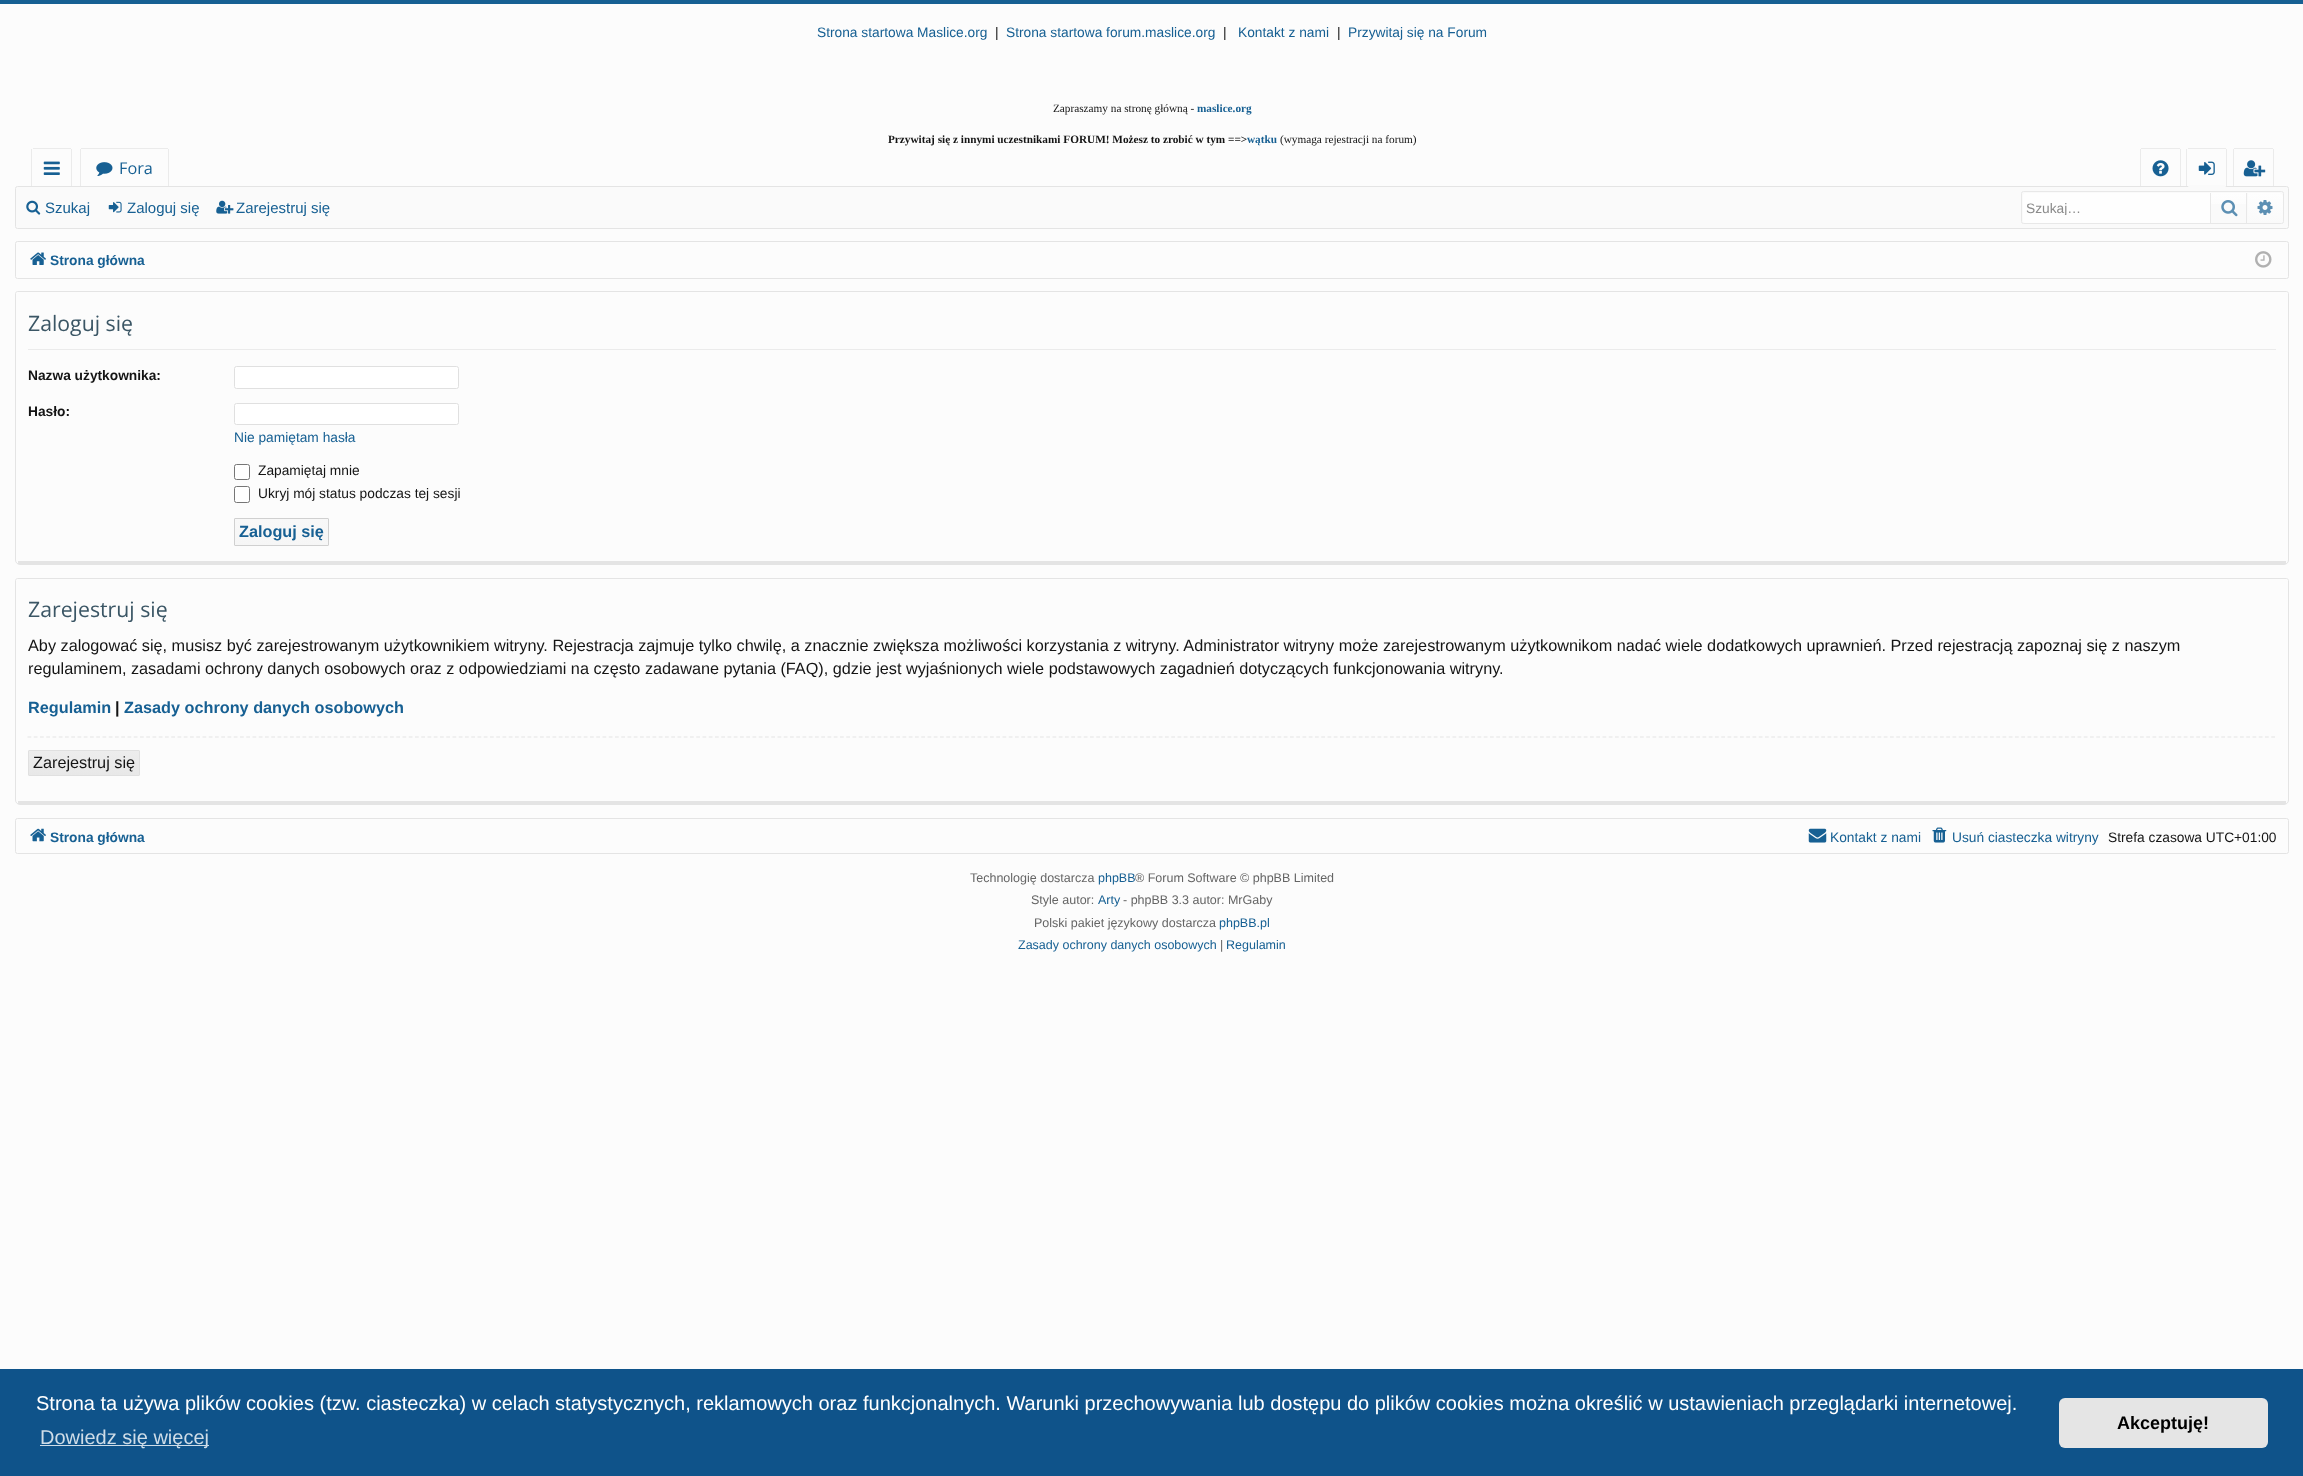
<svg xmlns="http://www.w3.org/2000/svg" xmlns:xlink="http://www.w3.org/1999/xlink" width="2303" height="1476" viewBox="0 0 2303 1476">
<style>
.cls-1{font:13.75px Liberation Sans;fill:#176093}
.cls-2{font:13.75px Liberation Sans;fill:#141414}
.cls-3{font:bold 11.25px Liberation Serif;fill:#176093}
.cls-4{font:bold 11.25px Liberation Serif;fill:#141414}
.cls-5{font:11.25px Liberation Serif;fill:#141414}
.cls-6{font:16.25px Open Sans;fill:#176093}
.cls-7{font:15px Liberation Sans;fill:#176093}
.cls-8{font:13.75px Liberation Sans;fill:#8b8b8b}
.cls-9{font:bold 13.75px Liberation Sans;fill:#176093}
.cls-10{font:21.25px Open Sans;fill:#3b5665}
.cls-11{font:bold 13.75px Liberation Sans;fill:#141414}
.cls-12{font:bold 16.25px Liberation Sans;fill:#176093}
.cls-13{font:16.25px Liberation Sans;fill:#141414}
.cls-14{font:bold 16.25px Liberation Sans;fill:#141414}
.cls-15{font:12.5px Liberation Sans;fill:#656565}
.cls-16{font:12.5px Liberation Sans;fill:#176093}
.cls-17{font:20px Liberation Sans;fill:#ffffff}
.cls-18{font:20px Liberation Sans;fill:#cfdde8}
.cls-19{font:bold 18px Liberation Sans;fill:#000000}
</style>
<defs>
<linearGradient id="g1" gradientUnits="userSpaceOnUse" x1="2229" y1="193" x2="2229" y2="223"><stop offset="0" stop-color="#fefefe"/><stop offset="1" stop-color="#fafafa"/></linearGradient>
<linearGradient id="g2" gradientUnits="userSpaceOnUse" x1="2265" y1="193" x2="2265" y2="223"><stop offset="0" stop-color="#fefefe"/><stop offset="1" stop-color="#fafafa"/></linearGradient>
<linearGradient id="g3" gradientUnits="userSpaceOnUse" x1="281" y1="519" x2="281" y2="545"><stop offset="0" stop-color="#f8f8f8"/><stop offset="1" stop-color="#f6f6f6"/></linearGradient>
<linearGradient id="g4" gradientUnits="userSpaceOnUse" x1="84" y1="751" x2="84" y2="775"><stop offset="0" stop-color="#ededed"/><stop offset="1" stop-color="#e8e8e8"/></linearGradient>
<clipPath id="clip1"><rect x="2026" y="200" width="175" height="15"/></clipPath>
</defs>
<rect width="100%" height="100%" fill="#fcfcfc"/>
<rect fill="#176093" x="0" y="0" width="2303" height="4"/>
<rect fill="#ebebeb" x="33" y="148" width="38" height="1"/>
<rect fill="#ebebeb" x="71" y="149" width="1" height="39"/>
<rect fill="#ebebeb" x="31" y="149" width="1" height="39"/>
<image xlink:href="image0.png" x="43" y="161" width="17" height="14"/>
<rect fill="#ebebeb" x="81" y="148" width="87" height="1"/>
<rect fill="#ebebeb" x="168" y="149" width="1" height="39"/>
<rect fill="#ebebeb" x="80" y="149" width="1" height="39"/>
<image xlink:href="image1.png" x="96" y="162" width="17" height="14"/>
<rect fill="#ebebeb" x="2141" y="148" width="39" height="1"/>
<rect fill="#ebebeb" x="2180" y="149" width="1" height="39"/>
<rect fill="#ebebeb" x="2140" y="149" width="1" height="39"/>
<image xlink:href="image2.png" x="2152" y="160" width="17" height="17"/>
<rect fill="#ebebeb" x="2188" y="148" width="38" height="1"/>
<rect fill="#ebebeb" x="2226" y="149" width="1" height="39"/>
<rect fill="#ebebeb" x="2186" y="149" width="1" height="39"/>
<image xlink:href="image3.png" x="2198" y="161" width="17" height="14"/>
<rect fill="#ebebeb" x="2273" y="149" width="1" height="39"/>
<rect fill="#ebebeb" x="2233" y="149" width="1" height="39"/>
<rect fill="#fafafa" stroke="#e4e4e4" x="15.5" y="186.5" width="2273" height="42" rx="2"/>
<path fill="#fafafa" d="M2190.5 185H2223.5C2225 185 2226 186 2226 187.5V190H2188V187.5C2188 186 2189 185 2190.5 185Z"/>
<rect fill="#ebebeb" x="2234" y="148" width="39" height="1"/>
<image xlink:href="image4.png" x="2243" y="160" width="23" height="17"/>
<image xlink:href="image5.png" x="26" y="200" width="15" height="15"/>
<image xlink:href="image6.png" x="108" y="201" width="14" height="12"/>
<image xlink:href="image7.png" x="216" y="200" width="18" height="14"/>
<rect fill="none" stroke="#e8e8e8" x="2021.5" y="191.5" width="262" height="32" rx="2"/>
<path fill="#fefefe" d="M2025.5 193H2210V223H2025.5C2024 223 2023 222 2023 220.5V195.5C2023 194 2024 193 2025.5 193Z"/>
<rect fill="url(#g1)" x="2211" y="193" width="35" height="11"/>
<rect fill="#e8e8e8" x="2246" y="193" width="1" height="30"/>
<rect fill="#e8e8e8" x="2210" y="193" width="1" height="30"/>
<image xlink:href="image8.png" x="2221" y="200" width="17" height="17"/>
<path fill="url(#g2)" d="M2248 193H2278C2281 193 2283 195 2283 198V218C2283 221 2281 223 2278 223H2248Z"/>
<image xlink:href="image9.png" x="2257" y="200" width="16" height="15"/>
<rect fill="none" stroke="#e4e4e4" x="15.5" y="241.5" width="2273" height="37" rx="2"/>
<image xlink:href="image10.png" x="30" y="252" width="16" height="13"/>
<image xlink:href="image11.png" x="2255" y="251" width="17" height="17"/>
<path fill="none" stroke="#e4e4e4" d="M17.5 291.5H2286.5C2287.5 291.5 2288.5 292.5 2288.5 293.5V560C2288.5 562.5 2286.5 564.5 2284 564.5H20C17.5 564.5 15.5 562.5 15.5 560V293.5C15.5 292.5 16.5 291.5 17.5 291.5Z"/>
<rect fill="#e4e4e4" x="18" y="561" width="2268" height="3"/>
<rect fill="#ebebeb" x="28" y="349" width="2248" height="1"/>
<rect fill="#ffffff" stroke="#e0e0e0" x="234.5" y="366.5" width="224" height="22" rx="2"/>
<rect fill="#ffffff" stroke="#e0e0e0" x="234.5" y="403.5" width="224" height="21" rx="2"/>
<rect fill="#ffffff" stroke="#767676" x="234.5" y="464.5" width="15" height="15" rx="2"/>
<rect fill="#ffffff" stroke="#767676" x="234.5" y="486.5" width="15" height="16" rx="2"/>
<rect fill="url(#g3)" x="235" y="519" width="93" height="26"/>
<rect fill="none" stroke="#d0d0d0" x="234.5" y="518.5" width="94" height="27" rx="0.5"/>
<path fill="none" stroke="#e4e4e4" d="M17.5 578.5H2286.5C2287.5 578.5 2288.5 579.5 2288.5 580.5V800C2288.5 802.5 2286.5 804.5 2284 804.5H20C17.5 804.5 15.5 802.5 15.5 800V580.5C15.5 579.5 16.5 578.5 17.5 578.5Z"/>
<rect fill="#e4e4e4" x="18" y="801" width="2268" height="3"/>
<path fill="none" stroke="#e3e3e3" stroke-width="1.2" stroke-dasharray="3.75 2.5" d="M27.5 737H2276"/>
<rect fill="url(#g4)" x="29" y="751" width="110" height="24"/>
<rect fill="none" stroke="#e0e0e0" x="28.5" y="750.5" width="111" height="25" rx="0.5"/>
<rect fill="none" stroke="#e4e4e4" x="15.5" y="818.5" width="2273" height="35" rx="2"/>
<image xlink:href="image12.png" x="30" y="828" width="16" height="14"/>
<image xlink:href="image13.png" x="1808" y="828" width="19" height="15"/>
<image xlink:href="image14.png" x="1932" y="827" width="15" height="16"/>
<rect fill="#0f538a" x="0" y="1369" width="2303" height="107"/>
<rect fill="#cfdde8" x="40" y="1445" width="169" height="1"/>
<rect fill="#e5e5e5" x="2059" y="1398" width="209" height="50" rx="6"/>
<text class="cls-1" x="817" y="37">Strona startowa Maslice.org</text>
<text class="cls-2" x="995" y="37">|</text>
<text class="cls-1" x="1006" y="37">Strona startowa forum.maslice.org</text>
<text class="cls-2" x="1223" y="37">|</text>
<text class="cls-1" x="1238" y="37">Kontakt z nami</text>
<text class="cls-2" x="1337" y="37">|</text>
<text class="cls-1" x="1348" y="37">Przywitaj się na Forum</text>
<text class="cls-3" x="1197" y="112">maslice.org</text>
<text class="cls-4" x="888" y="143">Przywitaj się z innymi uczestnikami FORUM! Możesz to zrobić w tym ==&gt;</text>
<text class="cls-3" x="1247" y="143">wątku</text>
<text class="cls-5" x="1053" y="112">Zapraszamy na stronę główną -</text>
<text class="cls-5" x="1280" y="143">(wymaga rejestracji na forum)</text>
<text class="cls-6" x="119" y="174">Fora</text>
<text class="cls-7" x="45" y="213">Szukaj</text>
<text class="cls-7" x="127" y="213">Zaloguj się</text>
<text class="cls-7" x="236" y="213">Zarejestruj się</text>
<g clip-path="url(#clip1)">
<text class="cls-8" x="2026" y="213">Szukaj…</text>
</g>
<text class="cls-9" x="50" y="265">Strona główna</text>
<text class="cls-10" x="28" y="331">Zaloguj się</text>
<text class="cls-11" x="28" y="380">Nazwa użytkownika:</text>
<text class="cls-11" x="28" y="416">Hasło:</text>
<text class="cls-1" x="234" y="442">Nie pamiętam hasła</text>
<text class="cls-2"><tspan x="258" y="475">Zapamiętaj mnie</tspan><tspan x="258" y="498">Ukryj mój status podczas tej sesji</tspan></text>
<text class="cls-12" x="239" y="537">Zaloguj się</text>
<text class="cls-10" x="28" y="617">Zarejestruj się</text>
<text class="cls-13"><tspan x="28" y="651">Aby zalogować się, musisz być zarejestrowanym użytkownikiem witryny. Rejestracja zajmuje tylko chwilę, a znacznie zwiększa możliwości korzystania z witryny. Administrator witryny może zarejestrowanym użytkownikom nadać wiele dodatkowych uprawnień. Przed rejestracją zapoznaj się z naszym</tspan><tspan x="28" y="674">regulaminem, zasadami ochrony danych osobowych oraz z odpowiedziami na często zadawane pytania (FAQ), gdzie jest wyjaśnionych wiele podstawowych zagadnień dotyczących funkcjonowania witryny.</tspan></text>
<text class="cls-12" x="28" y="713">Regulamin</text>
<text class="cls-14" x="115" y="713">|</text>
<text class="cls-12" x="124" y="713">Zasady ochrony danych osobowych</text>
<text class="cls-13" x="33" y="768">Zarejestruj się</text>
<text class="cls-9" x="50" y="842">Strona główna</text>
<text class="cls-1" x="1830" y="842">Kontakt z nami</text>
<text class="cls-1" x="1952" y="842">Usuń ciasteczka witryny</text>
<text class="cls-2" x="2108" y="842">Strefa czasowa UTC+01:00</text>
<text class="cls-15" x="970" y="882">Technologię dostarcza</text>
<text class="cls-16" x="1098" y="882">phpBB</text>
<text class="cls-15" x="1135" y="882">® Forum Software © phpBB Limited</text>
<text class="cls-15" x="1031" y="904">Style autor:</text>
<text class="cls-16" x="1098" y="904">Arty</text>
<text class="cls-15" x="1123" y="904">- phpBB 3.3 autor: MrGaby</text>
<text class="cls-15" x="1034" y="927">Polski pakiet językowy dostarcza</text>
<text class="cls-16" x="1219" y="927">phpBB.pl</text>
<text class="cls-16" x="1018" y="949">Zasady ochrony danych osobowych</text>
<text class="cls-15" x="1220" y="949">|</text>
<text class="cls-16" x="1226" y="949">Regulamin</text>
<text class="cls-17" x="36" y="1410">Strona ta używa plików cookies (tzw. ciasteczka) w celach statystycznych, reklamowych oraz funkcjonalnych. Warunki przechowywania lub dostępu do plików cookies można określić w ustawieniach przeglądarki internetowej.</text>
<text class="cls-18" x="40" y="1444">Dowiedz się więcej</text>
<text class="cls-19" x="2117" y="1429">Akceptuję!</text>
</svg>
